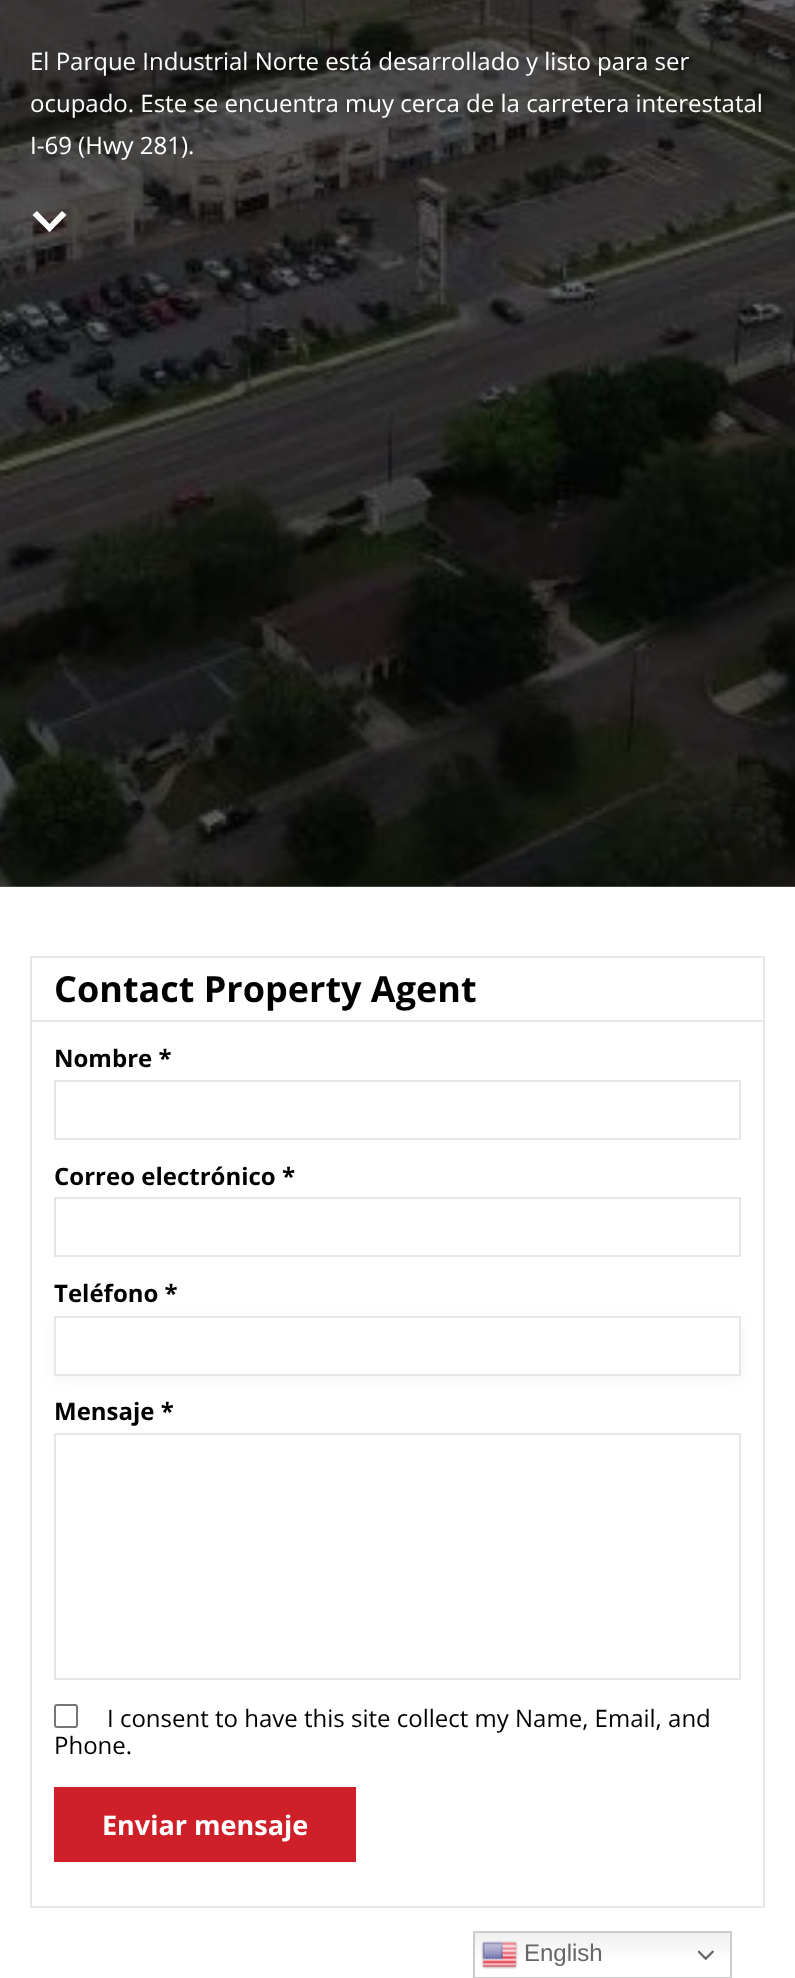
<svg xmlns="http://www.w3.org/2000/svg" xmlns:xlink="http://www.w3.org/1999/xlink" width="795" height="1978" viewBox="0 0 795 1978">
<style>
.cls-1{font:24px Open Sans;fill:#ffffff}
.cls-2{font:bold 36px Open Sans;fill:#000000}
.cls-3{font:bold 24px Open Sans;fill:#000000}
.cls-4{font:24px Open Sans;fill:#000000}
.cls-5{font:bold 27px Open Sans;fill:#ffffff}
.cls-6{font:24px Liberation Sans;fill:#666666}
</style>
<defs>
<linearGradient id="g1" gradientUnits="userSpaceOnUse" x1="602" y1="1931" x2="602" y2="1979"><stop offset="0" stop-color="#efefef"/><stop offset="0.7" stop-color="#ffffff"/></linearGradient>
</defs>
<rect width="100%" height="100%" fill="#ffffff"/>
<rect fill="#707070" x="0" y="886" width="795" height="1"/>
<image xlink:href="image0.png" x="0" y="0" width="795" height="887"/>
<path fill="#ffffff" d="M62 211L66.5 215L49.5 232L45.5 228Z"/>
<path fill="#ffffff" d="M37 211L53.5 228L49.5 232L32.5 215Z"/>
<rect fill="none" stroke="#e7e7e7" stroke-width="2" x="31" y="957" width="733" height="950"/>
<rect fill="#e7e7e7" x="32" y="1020" width="732" height="2"/>
<rect fill="none" stroke="#e7e7e7" stroke-width="2" x="55" y="1081" width="685" height="58"/>
<rect fill="none" stroke="#e7e7e7" stroke-width="2" x="55" y="1198" width="685" height="58"/>
<rect fill="#000000" fill-opacity="0.04" filter="blur(7.5px)" x="54" y="1320" width="687" height="60"/>
<rect fill="#ffffff" stroke="#e7e7e7" stroke-width="2" x="55" y="1317" width="685" height="58"/>
<rect fill="none" stroke="#e7e7e7" stroke-width="2" x="55" y="1434" width="685" height="245"/>
<rect fill="none" stroke="#767676" stroke-width="2" x="55" y="1705" width="22" height="22" rx="2"/>
<rect fill="#cf202a" x="54" y="1787" width="302" height="75"/>
<rect fill="url(#g1)" x="475" y="1933" width="255" height="26"/>
<rect fill="none" stroke="#cccccc" stroke-width="2" x="474" y="1932" width="257" height="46"/>
<image xlink:href="image1.png" x="481" y="1941" width="37" height="28"/>
<image xlink:href="image2.png" x="698" y="1950" width="16" height="10"/>
<text class="cls-1"><tspan x="30" y="70">El Parque Industrial Norte está desarrollado y listo para ser</tspan><tspan x="30" y="112">ocupado. Este se encuentra muy cerca de la carretera interestatal</tspan><tspan x="30" y="154">I-69 (Hwy 281).</tspan></text>
<text class="cls-2" x="54" y="1002">Contact Property Agent</text>
<text class="cls-3" x="54" y="1067">Nombre *</text>
<text class="cls-3" x="54" y="1185">Correo electrónico *</text>
<text class="cls-3" x="54" y="1302">Teléfono *</text>
<text class="cls-3" x="54" y="1420">Mensaje *</text>
<text class="cls-4" x="107" y="1727">I consent to have this site collect my Name, Email, and</text>
<text class="cls-4" x="54" y="1754">Phone.</text>
<text class="cls-5" x="102" y="1835">Enviar mensaje</text>
<text class="cls-6" x="524" y="1961">English</text>
</svg>
